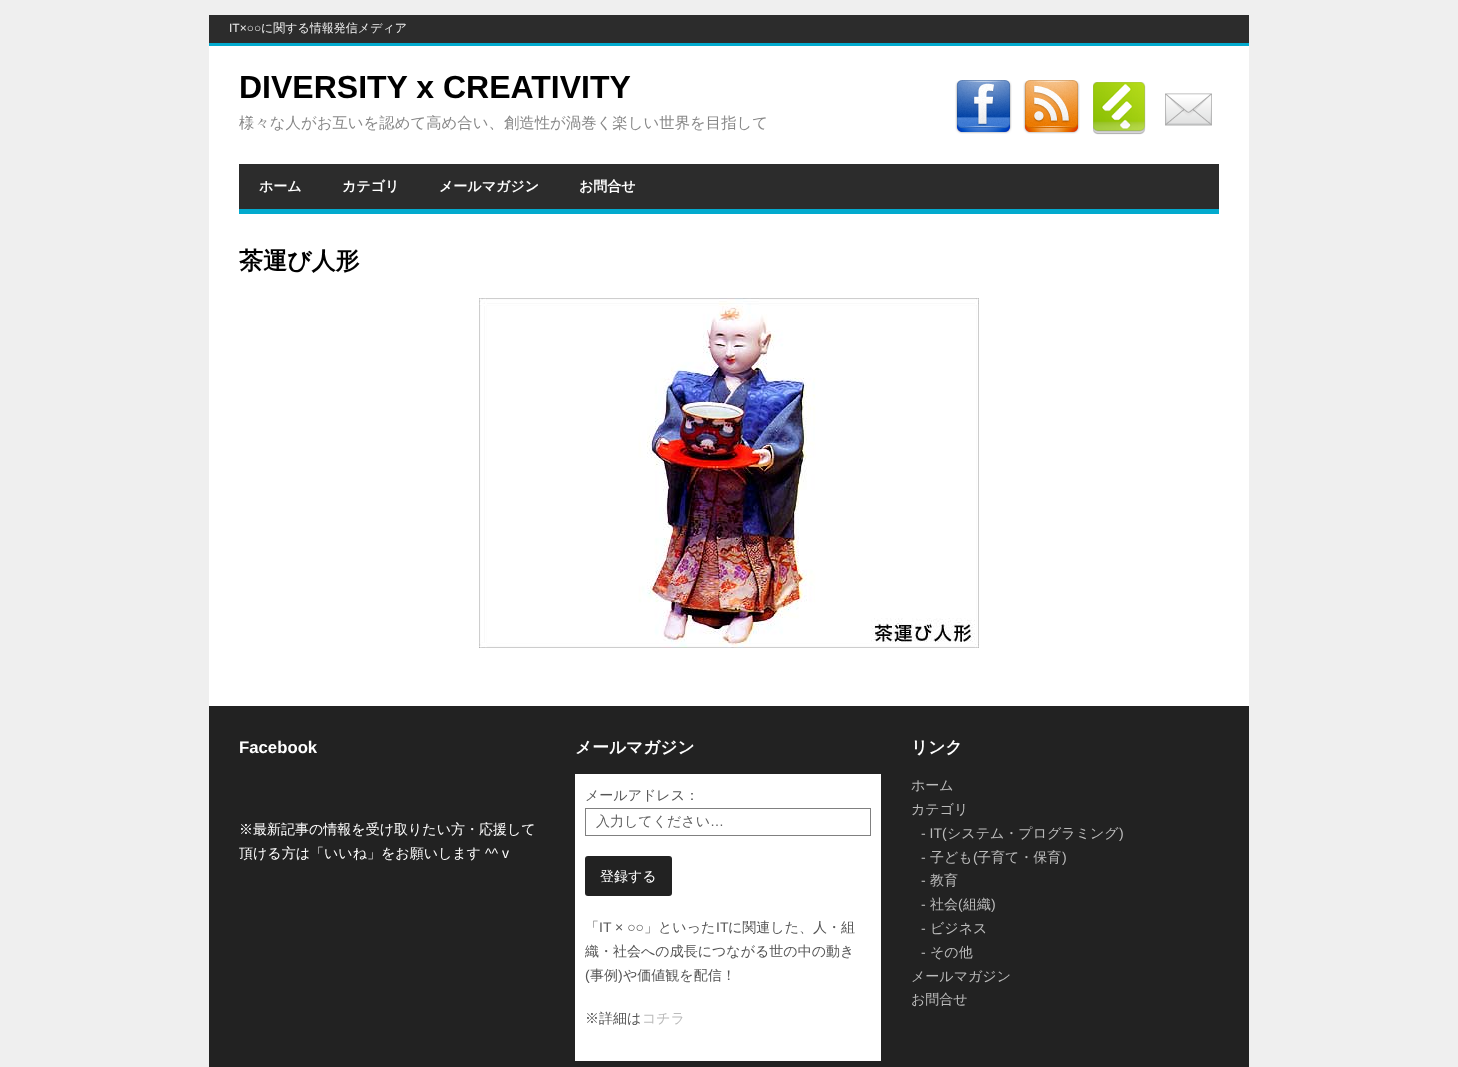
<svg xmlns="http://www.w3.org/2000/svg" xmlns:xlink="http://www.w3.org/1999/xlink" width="1458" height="1067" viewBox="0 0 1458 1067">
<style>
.cls-1{font:12px Liberation Sans;fill:#efefef}
.cls-2{font:500 12px WenQuanYi Zen Hei;fill:#efefef}
.cls-3{font:bold 32px Liberation Sans;fill:#000000}
.cls-4{font:500 15.4px WenQuanYi Zen Hei;fill:#888888}
.cls-5{font:bold 14px WenQuanYi Zen Hei;fill:#ffffff}
.cls-6{font:bold 24px WenQuanYi Zen Hei;fill:#000000}
.cls-7{font:bold 16.75px Liberation Sans;fill:#ffffff}
.cls-8{font:500 14px WenQuanYi Zen Hei;fill:#ffffff}
.cls-9{font:14px Liberation Sans;fill:#ffffff}
.cls-10{font:bold 16.75px WenQuanYi Zen Hei;fill:#ffffff}
.cls-11{font:500 14px WenQuanYi Zen Hei;fill:#555555}
.cls-12{font:500 14px WenQuanYi Zen Hei;fill:#606060}
.cls-13{font:14px Liberation Sans;fill:#606060}
.cls-14{font:14px Liberation Sans;fill:#555555}
.cls-15{font:500 14px WenQuanYi Zen Hei;fill:#bbbbbb}
.cls-16{font:14px Liberation Sans;fill:#bbbbbb}
</style>
<rect width="100%" height="100%" fill="#efefef"/>
<rect fill="#ffffff" x="209" y="46" width="1040" height="660"/>
<rect fill="#2c2c2c" x="209" y="15" width="1040" height="28"/>
<rect fill="#02aace" x="209" y="43" width="1040" height="3"/>
<image xlink:href="image0.png" x="955" y="80" width="57" height="54"/>
<image xlink:href="image1.png" x="1023" y="80" width="57" height="54"/>
<image xlink:href="image2.png" x="1093" y="82" width="53" height="53"/>
<image xlink:href="image3.png" x="1165" y="93" width="47" height="33"/>
<rect fill="#2c2c2c" x="239" y="164" width="980" height="45"/>
<rect fill="#02aace" x="239" y="209" width="980" height="5"/>
<image xlink:href="image4.png" x="479" y="298" width="500" height="350"/>
<rect fill="#222222" x="209" y="706" width="1040" height="361"/>
<rect fill="#ffffff" x="575" y="774" width="306" height="287"/>
<rect fill="none" stroke="#808080" x="585.5" y="808.5" width="285" height="27"/>
<rect fill="#222222" x="585" y="856" width="87" height="40" rx="3"/>
<text class="cls-1" x="229" y="32">IT×○○</text>
<text class="cls-2" x="261" y="32">に関する情報発信メディア</text>
<text class="cls-3" x="239" y="98">DIVERSITY x CREATIVITY</text>
<text class="cls-4" x="239" y="128">様々な人がお互いを認めて高め合い、創造性が渦巻く楽しい世界を目指して</text>
<text class="cls-5" x="259" y="191">ホーム</text>
<text class="cls-5" x="342" y="191">カテゴリ</text>
<text class="cls-5" x="439" y="191">メールマガジン</text>
<text class="cls-5" x="579" y="191">お問合せ</text>
<text class="cls-6" x="239" y="269">茶運び人形</text>
<text class="cls-7" x="239" y="753">Facebook</text>
<text class="cls-8"><tspan x="239" y="834">※最新記事の情報を受け取りたい方・応援して</tspan><tspan x="239" y="858">頂ける方は「いいね」をお願いします</tspan></text>
<text class="cls-9" x="485" y="858">^^ v</text>
<text class="cls-10" x="575" y="753">メールマガジン</text>
<text class="cls-11" x="585" y="800">メールアドレス：</text>
<text class="cls-12" x="596" y="826">入力してください</text>
<text class="cls-13" x="710" y="826">…</text>
<text class="cls-8" x="600" y="881">登録する</text>
<text class="cls-11" x="585" y="932">「</text>
<text class="cls-14" x="599" y="932">IT × ○○</text>
<text class="cls-11" x="644" y="932">」といった</text>
<text class="cls-14" x="716" y="932">IT</text>
<text class="cls-11" x="728" y="932">に関連した、人・組</text>
<text class="cls-11" x="585" y="956">織・社会への成長につながる世の中の動き</text>
<text class="cls-14" x="585" y="980">(</text>
<text class="cls-11" x="590" y="980">事例</text>
<text class="cls-14" x="618" y="980">)</text>
<text class="cls-11" x="623" y="980">や価値観を配信！</text>
<text class="cls-11" x="585" y="1023">※詳細は</text>
<text class="cls-15" x="642" y="1023">コチラ</text>
<text class="cls-10" x="911" y="753">リンク</text>
<text class="cls-15"><tspan x="911" y="790">ホーム</tspan><tspan x="911" y="814">カテゴリ</tspan></text>
<text class="cls-16" x="921" y="838">- IT(</text>
<text class="cls-15" x="947" y="838">システム・プログラミング</text>
<text class="cls-16" x="1119" y="838">)</text>
<text class="cls-16" x="921" y="862">-</text>
<text class="cls-15" x="930" y="862">子ども</text>
<text class="cls-16" x="973" y="862">(</text>
<text class="cls-15" x="977" y="862">子育て・保育</text>
<text class="cls-16" x="1062" y="862">)</text>
<text class="cls-16" x="921" y="885">-</text>
<text class="cls-15" x="930" y="885">教育</text>
<text class="cls-16" x="921" y="909">-</text>
<text class="cls-15" x="930" y="909">社会</text>
<text class="cls-16" x="958" y="909">(</text>
<text class="cls-15" x="963" y="909">組織</text>
<text class="cls-16" x="991" y="909">)</text>
<text class="cls-16" x="921" y="933">-</text>
<text class="cls-15" x="930" y="933">ビジネス</text>
<text class="cls-16" x="921" y="957">-</text>
<text class="cls-15" x="930" y="957">その他</text>
<text class="cls-15"><tspan x="911" y="981">メールマガジン</tspan><tspan x="911" y="1004">お問合せ</tspan></text>
</svg>
